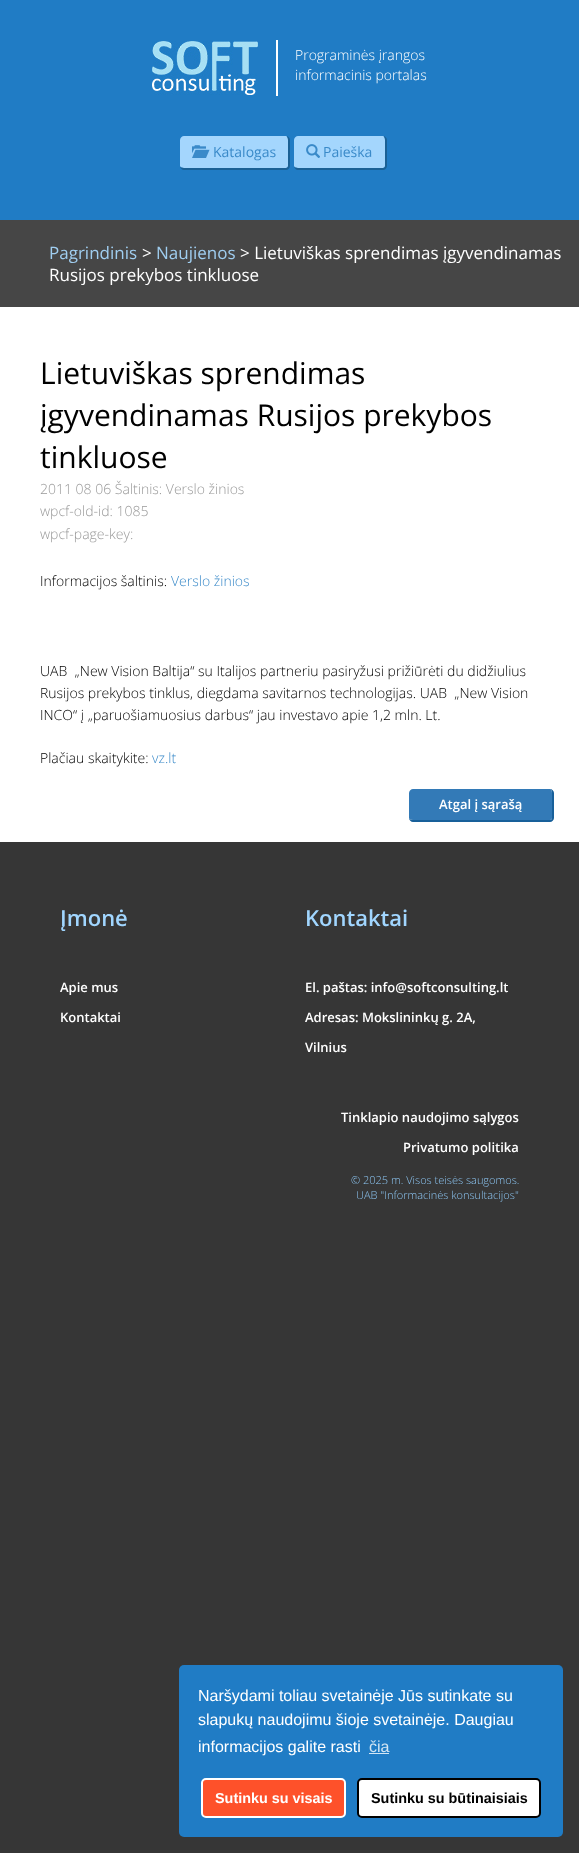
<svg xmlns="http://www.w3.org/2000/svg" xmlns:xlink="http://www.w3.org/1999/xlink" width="579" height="1853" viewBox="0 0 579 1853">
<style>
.cls-1{font:300 14px Open Sans;fill:#ffffff}
.cls-2{font:14px Open Sans;fill:#3a8ac9}
.cls-3{font:17px Open Sans;fill:#a0cef0}
.cls-4{font:17px Open Sans;fill:#ffffff}
.cls-5{font:30px Open Sans;fill:#000000}
.cls-6{font:300 14px Open Sans;fill:#999999}
.cls-7{font:300 14px Open Sans;fill:#000000}
.cls-8{font:300 14px Open Sans;fill:#3a8ac9}
.cls-9{font:600 13px Open Sans;fill:#ffffff}
.cls-10{font:600 22px Open Sans;fill:#a1d6ff}
.cls-11{font:300 11px Open Sans;fill:#8dc6f3}
.cls-12{font:16px Liberation Sans;fill:#ffffff}
.cls-13{font:16px Liberation Sans;fill:#d2e5f3}
.cls-14{font:bold 14.4px Liberation Sans;fill:#ffffff}
.cls-15{font:bold 14.4px Liberation Sans;fill:#000000}
</style>
<rect width="100%" height="100%" fill="#363636"/>
<rect fill="#207cc5" x="0" y="0" width="579" height="220"/>
<rect fill="#ffffff" x="276" y="40" width="2" height="56"/>
<image xlink:href="image0.png" x="152" y="41" width="106" height="54"/>
<path fill="#a4d6fd" d="M184 136H286C287 136 288 138 288 140V166C288 167 287 168 286 168H184C182 168 180 167 180 166V140C180 138 182 136 184 136Z"/>
<path fill="#1b6195" fill-rule="evenodd" d="M184 136H286C288 136 290 138 290 140V166C290 168 288 170 286 170H184C182 170 180 168 180 166V140C180 138 182 136 184 136ZM184 136H286C287 136 288 138 288 140V166C288 167 287 168 286 168H184C182 168 180 167 180 166V140C180 138 182 136 184 136Z"/>
<image xlink:href="image1.png" x="192" y="145" width="18" height="13"/>
<path fill="#a4d6fd" d="M298 136H383C384 136 385 138 385 140V166C385 167 384 168 383 168H298C296 168 294 167 294 166V140C294 138 296 136 298 136Z"/>
<path fill="#1b6195" fill-rule="evenodd" d="M298 136H383C385 136 387 138 387 140V166C387 168 385 170 383 170H298C296 170 294 168 294 166V140C294 138 296 136 298 136ZM298 136H383C384 136 385 138 385 140V166C385 167 384 168 383 168H298C296 168 294 167 294 166V140C294 138 296 136 298 136Z"/>
<image xlink:href="image2.png" x="306" y="144" width="14" height="14"/>
<rect fill="#464646" x="0" y="220" width="579" height="87"/>
<rect fill="#ffffff" x="0" y="307" width="579" height="535"/>
<path fill="#337ab7" d="M413 789H550C551 789 552 791 552 793V818C552 819 551 820 550 820H413C411 820 409 819 409 818V793C409 791 411 789 413 789Z"/>
<path fill="#18609a" fill-rule="evenodd" d="M413 789H550C552 789 554 791 554 793V818C554 820 552 822 550 822H413C411 822 409 820 409 818V793C409 791 411 789 413 789ZM413 789H550C551 789 552 791 552 793V818C552 819 551 820 550 820H413C411 820 409 819 409 818V793C409 791 411 789 413 789Z"/>
<rect fill="#207cc5" x="179" y="1665" width="384" height="172" rx="5"/>
<rect fill="#d2e5f3" x="369" y="1753" width="20" height="1"/>
<rect fill="#fe512a" stroke="#ffffff" stroke-width="2" x="202" y="1779" width="143" height="38" rx="4"/>
<rect fill="#ffffff" stroke="#000000" stroke-width="2" x="358" y="1779" width="182" height="38" rx="4"/>
<text class="cls-1"><tspan x="295" y="60">Programinės įrangos</tspan><tspan x="295" y="80">informacinis portalas</tspan></text>
<text class="cls-2" x="213" y="157">Katalogas</text>
<text class="cls-2" x="323" y="157">Paieška</text>
<text class="cls-3" x="49" y="259">Pagrindinis</text>
<text class="cls-4" x="142" y="259">&gt;</text>
<text class="cls-3" x="156" y="259">Naujienos</text>
<text class="cls-4" x="240" y="259">&gt; Lietuviškas sprendimas įgyvendinamas</text>
<text class="cls-4" x="49" y="281">Rusijos prekybos tinkluose</text>
<text class="cls-5"><tspan x="40" y="384">Lietuviškas sprendimas</tspan><tspan x="40" y="426">įgyvendinamas Rusijos prekybos</tspan><tspan x="40" y="468">tinkluose</tspan></text>
<text class="cls-6"><tspan x="40" y="494">2011 08 06 Šaltinis: Verslo žinios</tspan><tspan x="40" y="516">wpcf-old-id: 1085</tspan><tspan x="40" y="539">wpcf-page-key:</tspan></text>
<text class="cls-7" x="40" y="586">Informacijos šaltinis:</text>
<text class="cls-8" x="171" y="586">Verslo žinios</text>
<text class="cls-7" xml:space="preserve"><tspan x="40" y="676">UAB  „New Vision Baltija“ su Italijos partneriu pasiryžusi prižiūrėti du didžiulius</tspan><tspan x="40" y="698">Rusijos prekybos tinklus, diegdama savitarnos technologijas. UAB  „New Vision</tspan><tspan x="40" y="720">INCO“ į „paruošiamuosius darbus“ jau investavo apie 1,2 mln. Lt.</tspan></text>
<text class="cls-7" x="40" y="763">Plačiau skaitykite:</text>
<text class="cls-8" x="152" y="763">vz.lt</text>
<text class="cls-9" x="439" y="809">Atgal į sąrašą</text>
<text class="cls-10" x="60" y="926">Įmonė</text>
<text class="cls-9" x="60" y="992">Apie mus</text>
<text class="cls-9" x="60" y="1022">Kontaktai</text>
<text class="cls-10" x="305" y="926">Kontaktai</text>
<text class="cls-9" x="305" y="992">El. paštas: info@softconsulting.lt</text>
<text class="cls-9" x="305" y="1022">Adresas: Mokslininkų g. 2A,</text>
<text class="cls-9" x="305" y="1052">Vilnius</text>
<text class="cls-9" x="341" y="1122">Tinklapio naudojimo sąlygos</text>
<text class="cls-9" x="403" y="1152">Privatumo politika</text>
<text class="cls-11" x="351" y="1184">© 2025 m. Visos teisės saugomos.</text>
<text class="cls-11" x="356" y="1199">UAB "Informacinės konsultacijos"</text>
<text class="cls-12"><tspan x="198" y="1701">Naršydami toliau svetainėje Jūs sutinkate su</tspan><tspan x="198" y="1725">slapukų naudojimu šioje svetainėje. Daugiau</tspan><tspan x="198" y="1752">informacijos galite rasti</tspan></text>
<text class="cls-13" x="369" y="1752">čia</text>
<text class="cls-14" x="215" y="1803">Sutinku su visais</text>
<text class="cls-15" x="371" y="1803">Sutinku su būtinaisiais</text>
</svg>
